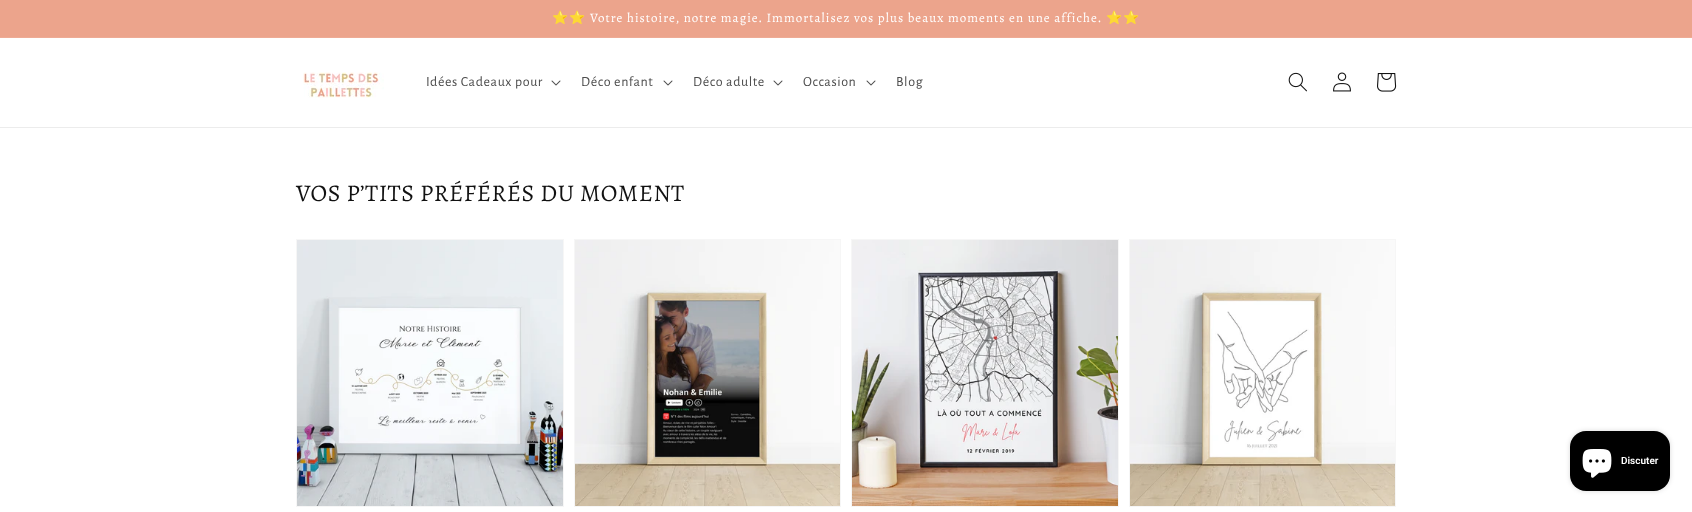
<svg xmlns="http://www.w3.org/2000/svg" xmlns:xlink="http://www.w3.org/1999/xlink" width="1692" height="512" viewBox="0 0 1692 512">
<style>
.cls-1{font:13px Noto Color Emoji;letter-spacing:1px;fill:#ffffff}
.cls-2{font:13px Alegreya;letter-spacing:1px;fill:#ffffff}
.cls-3{font:14px Alegreya Sans;letter-spacing:0.6px;fill:#4d4d4d}
.cls-4{font:24px Alegreya;letter-spacing:0.6px;fill:#121212}
.cls-5{font:600 10px Roboto;fill:#ffffff}
</style>
<rect width="100%" height="100%" fill="#ffffff"/>
<rect fill="#eca48c" x="0" y="0" width="1692" height="37"/>
<rect fill="#eeab95" x="0" y="37" width="1692" height="1"/>
<rect fill="#ececec" x="0" y="127" width="1692" height="1"/>
<image xlink:href="image0.png" x="303" y="72" width="81" height="26"/>
<image xlink:href="image1.png" x="551" y="80" width="10" height="6"/>
<image xlink:href="image1.png" x="663" y="80" width="10" height="6"/>
<image xlink:href="image1.png" x="773" y="80" width="10" height="6"/>
<image xlink:href="image1.png" x="866" y="80" width="10" height="6"/>
<image xlink:href="image2.png" x="1288" y="72" width="19" height="20"/>
<image xlink:href="image3.png" x="1333" y="72" width="18" height="20"/>
<image xlink:href="image4.png" x="1377" y="73" width="20" height="19"/>
<rect fill="none" stroke="#f6f6f6" x="296.5" y="239.5" width="267" height="267"/>
<image xlink:href="image5.png" x="297" y="240" width="266" height="266"/>
<rect fill="none" stroke="#f6f6f6" x="574.5" y="239.5" width="266" height="267"/>
<image xlink:href="image6.png" x="575" y="240" width="265" height="266"/>
<rect fill="none" stroke="#f6f6f6" x="851.5" y="239.5" width="267" height="267"/>
<image xlink:href="image7.png" x="852" y="240" width="266" height="266"/>
<rect fill="none" stroke="#f6f6f6" x="1129.5" y="239.5" width="266" height="267"/>
<image xlink:href="image8.png" x="1130" y="240" width="265" height="266"/>
<rect fill="#000000" fill-opacity="0.15" filter="blur(2.5px)" x="1570" y="431" width="100" height="60" rx="16"/>
<rect fill="#000000" x="1570" y="431" width="100" height="60" rx="16"/>
<image xlink:href="image9.png" x="1582" y="449" width="30" height="29"/>
<text class="cls-1" x="552" y="22">⭐⭐</text>
<text class="cls-2" x="590" y="22">Votre histoire, notre magie. Immortalisez vos plus beaux moments en une affiche.</text>
<text class="cls-1" x="1106" y="22">⭐⭐</text>
<text class="cls-3" x="426" y="86">Idées Cadeaux pour</text>
<text class="cls-3" x="581" y="86">Déco enfant</text>
<text class="cls-3" x="693" y="86">Déco adulte</text>
<text class="cls-3" x="803" y="86">Occasion</text>
<text class="cls-3" x="896" y="86">Blog</text>
<text class="cls-4" x="296" y="201">VOS P’TITS PRÉFÉRÉS DU MOMENT</text>
<text class="cls-5" x="1621" y="464">Discuter</text>
</svg>
